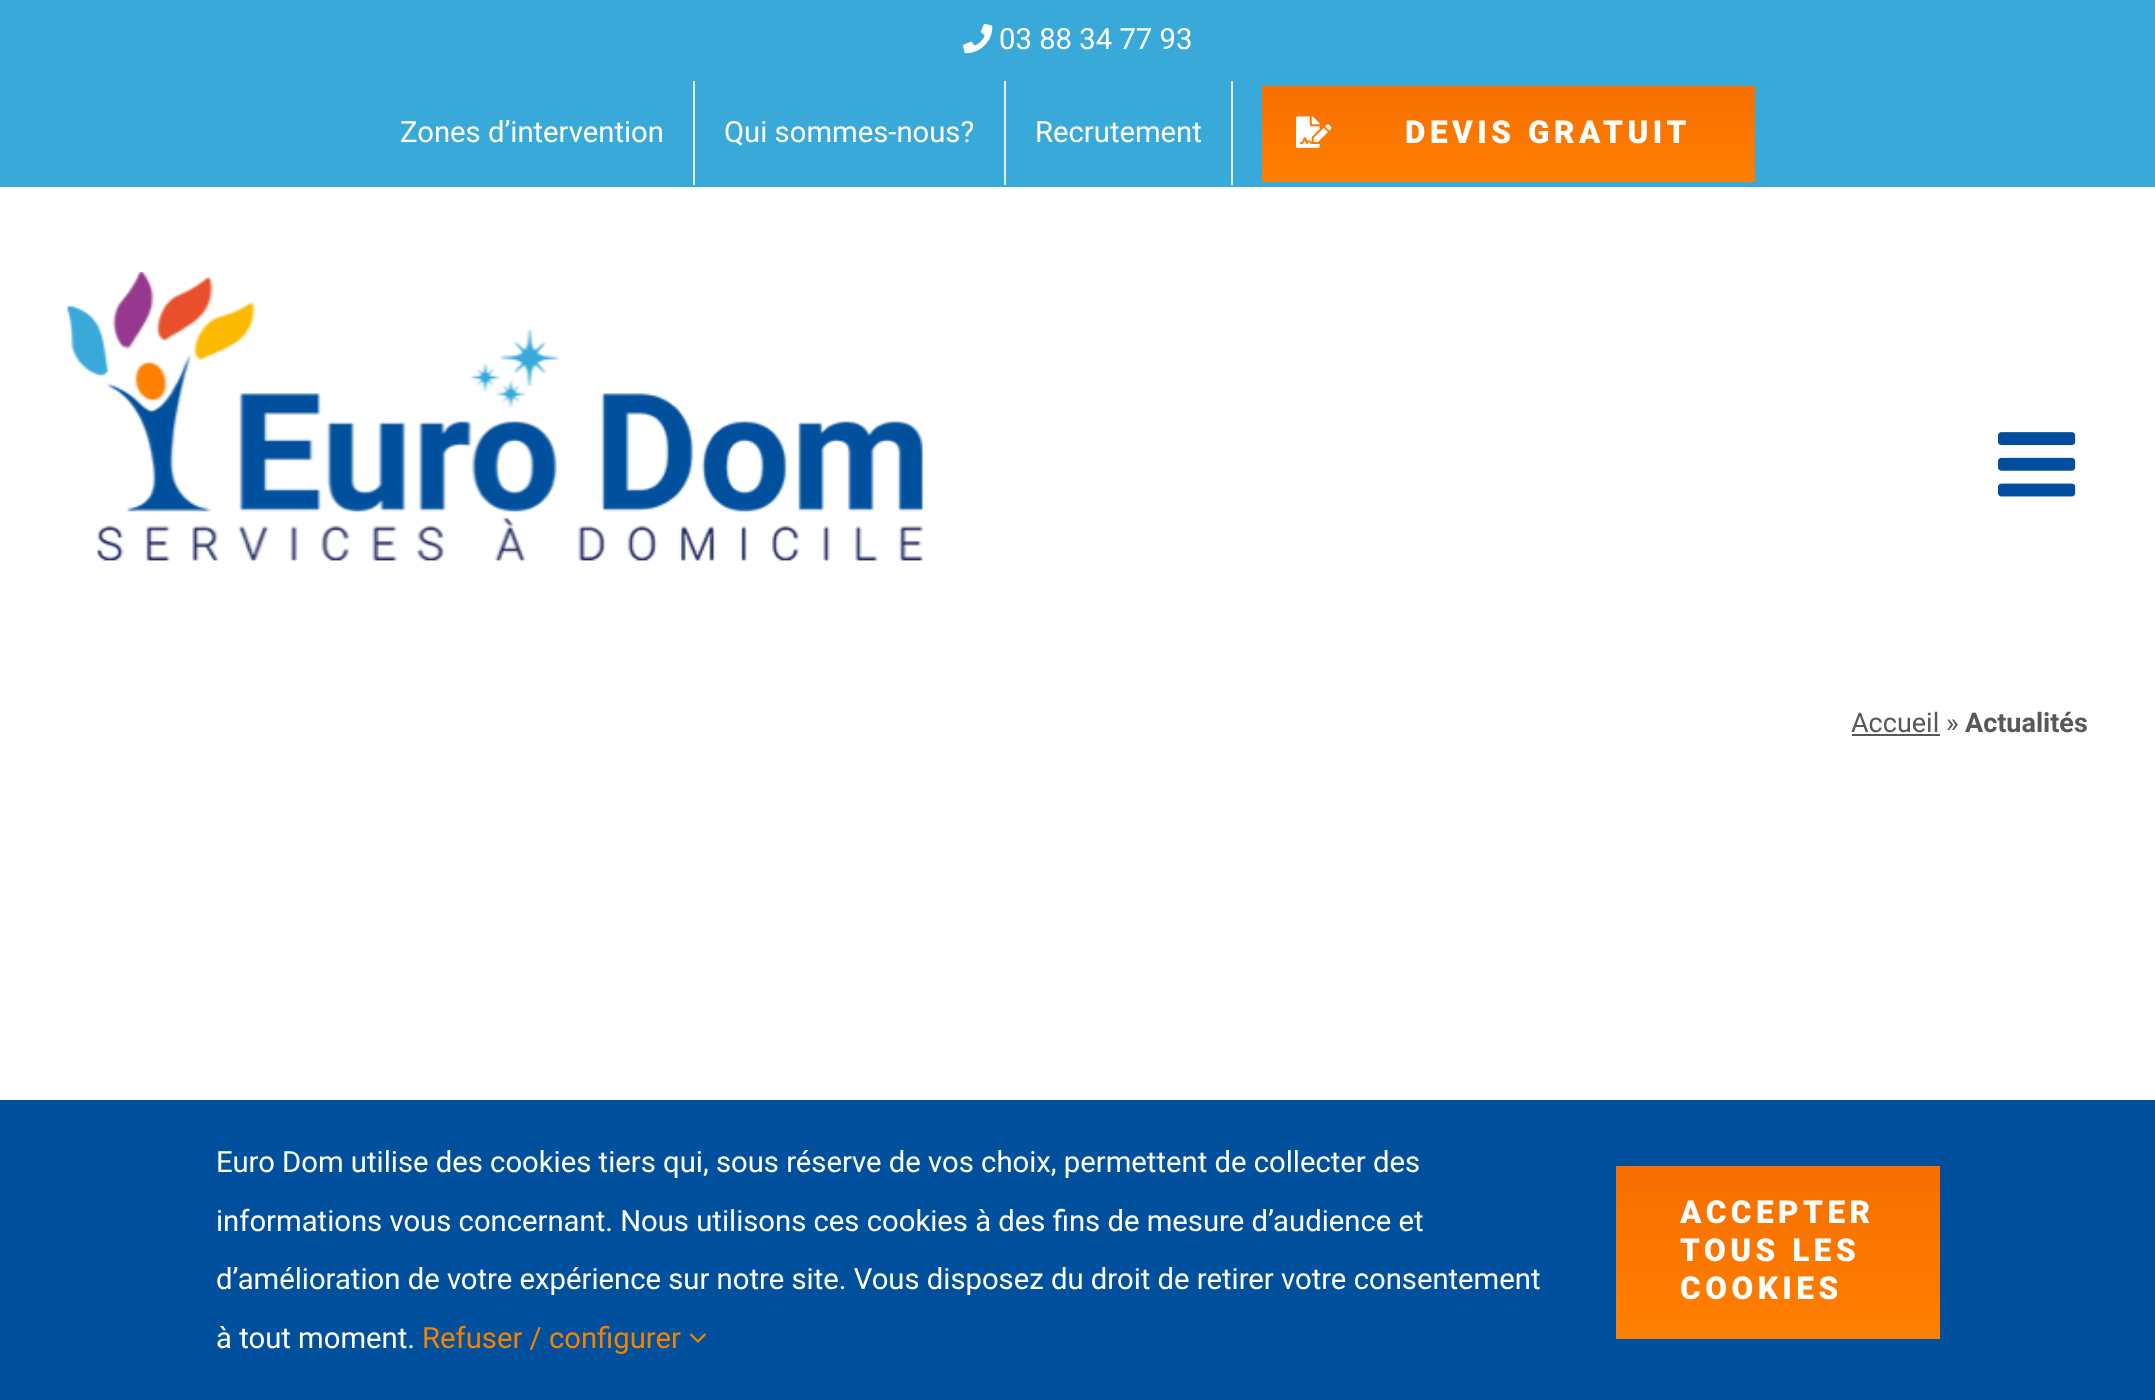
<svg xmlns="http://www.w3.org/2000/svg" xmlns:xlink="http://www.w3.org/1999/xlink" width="2155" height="1400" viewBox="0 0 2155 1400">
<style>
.cls-1{font:29.25px Roboto;fill:#ffffff}
.cls-2{font:900 31.5px Roboto;letter-spacing:4.5px;fill:#ffffff}
.cls-3{font:27px Roboto;fill:#585858}
.cls-4{font:bold 27px Roboto;fill:#585858}
.cls-5{font:29.25px Roboto;fill:#f48200}
</style>
<defs>
<linearGradient id="g1" gradientUnits="userSpaceOnUse" x1="1509" y1="85" x2="1509" y2="182"><stop offset="0" stop-color="#f76f00"/><stop offset="1" stop-color="#ff7f00"/></linearGradient>
<linearGradient id="g2" gradientUnits="userSpaceOnUse" x1="1778" y1="1166" x2="1778" y2="1339"><stop offset="0" stop-color="#f76f00"/><stop offset="1" stop-color="#ff7f00"/></linearGradient>
</defs>
<rect width="100%" height="100%" fill="#ffffff"/>
<rect fill="#39a9da" x="0" y="0" width="2155" height="187"/>
<image xlink:href="image0.png" x="963" y="23" width="30" height="31"/>
<rect fill="#e8e8e8" x="693" y="81" width="2" height="104"/>
<rect fill="#e8e8e8" x="1004" y="81" width="2" height="104"/>
<rect fill="#e8e8e8" x="1231" y="81" width="2" height="104"/>
<rect fill="url(#g1)" x="1262" y="86" width="493" height="96"/>
<image xlink:href="image1.png" x="1296" y="116" width="36" height="32"/>
<image xlink:href="image2.png" x="67" y="272" width="856" height="289"/>
<image xlink:href="image3.png" x="1998" y="432" width="78" height="65"/>
<rect fill="#585858" x="1852" y="734" width="88" height="2"/>
<rect fill="#00509d" x="0" y="1100" width="2155" height="300"/>
<image xlink:href="image4.png" x="689" y="1333" width="17" height="10"/>
<rect fill="url(#g2)" x="1616" y="1166" width="324" height="173"/>
<text class="cls-1" x="999" y="49">03 88 34 77 93</text>
<text class="cls-1" x="400" y="142">Zones d’intervention</text>
<text class="cls-1" x="724" y="142">Qui sommes-nous?</text>
<text class="cls-1" x="1035" y="142">Recrutement</text>
<text class="cls-2" x="1405" y="143">DEVIS GRATUIT</text>
<text class="cls-3" x="1851" y="732">Accueil »</text>
<text class="cls-4" x="1965" y="732">Actualités</text>
<text class="cls-1" x="216" y="1172">Euro Dom utilise des cookies tiers qui, sous réserve de vos choix, permettent de collecter des</text>
<text class="cls-1"><tspan x="216" y="1231">informations vous concernant. Nous utilisons ces cookies à des fins de mesure d’audience et</tspan><tspan x="216" y="1289">d’amélioration de votre expérience sur notre site. Vous disposez du droit de retirer votre consentement</tspan></text>
<text class="cls-1" x="216" y="1348">à tout moment.</text>
<text class="cls-5" x="422" y="1348">Refuser / configurer</text>
<text class="cls-2"><tspan x="1680" y="1223">ACCEPTER</tspan><tspan x="1680" y="1261">TOUS LES</tspan><tspan x="1680" y="1299">COOKIES</tspan></text>
</svg>
